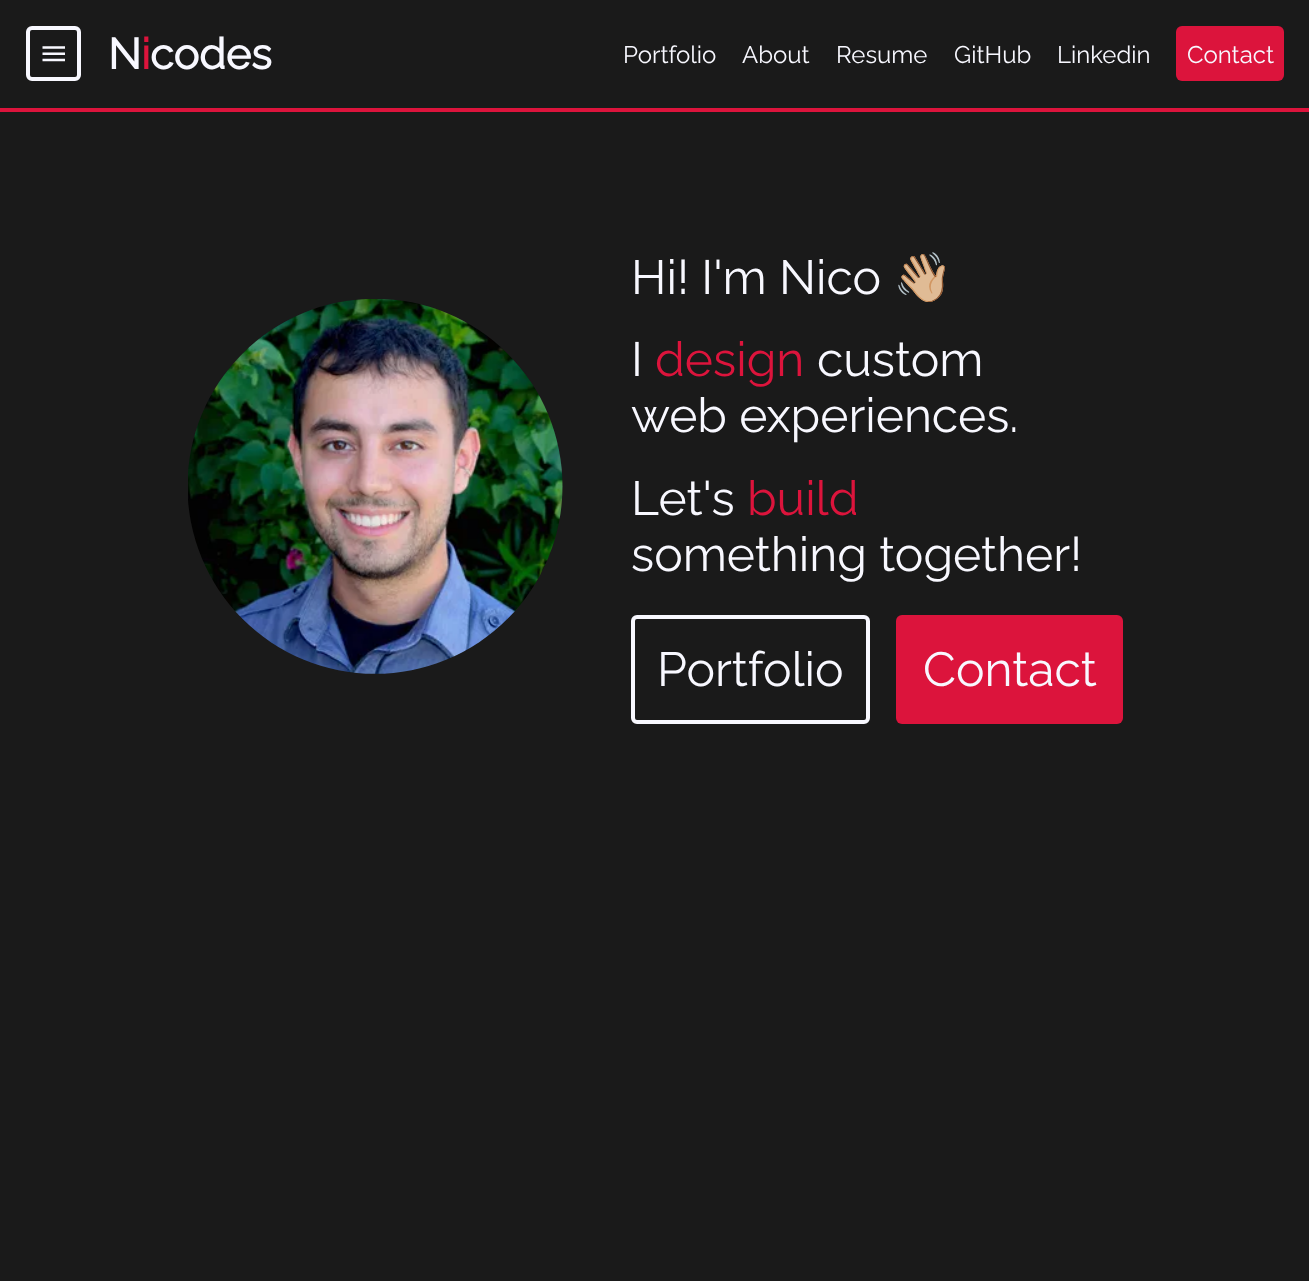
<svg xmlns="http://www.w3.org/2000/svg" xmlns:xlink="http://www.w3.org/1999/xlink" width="1309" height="1281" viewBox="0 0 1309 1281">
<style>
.cls-1{font:bold 43px Raleway;fill:#f8f8ff}
.cls-2{font:bold 43px Raleway;fill:#dc143c}
.cls-3{font:100 24px Raleway;fill:#f8f8ff}
.cls-4{font:100 48px Raleway;fill:#f8f8ff}
.cls-5{font:48px Noto Color Emoji;fill:#dc143c}
.cls-6{font:100 48px Raleway;fill:#dc143c}
</style>
<rect width="100%" height="100%" fill="#1a1a1a"/>
<rect fill="none" stroke="#f8f8ff" stroke-width="4" x="28" y="28" width="51" height="51" rx="4"/>
<image xlink:href="image0.png" x="42" y="46" width="23" height="16"/>
<rect fill="#dc143c" x="1176" y="26" width="108" height="55" rx="6"/>
<rect fill="#dc143c" x="0" y="108" width="1309" height="4"/>
<image xlink:href="image1.png" x="188" y="299" width="375" height="375"/>
<rect fill="none" stroke="#f8f8ff" stroke-width="4" x="633" y="617" width="235" height="105" rx="4"/>
<rect fill="#dc143c" x="896" y="615" width="227" height="109" rx="6"/>
<text class="cls-1" x="108" y="69">N</text>
<text class="cls-2" x="141" y="69">i</text>
<text class="cls-1" x="150" y="69">codes</text>
<text class="cls-3" x="623" y="63">Portfolio</text>
<text class="cls-3" x="742" y="63">About</text>
<text class="cls-3" x="836" y="63">Resume</text>
<text class="cls-3" x="954" y="63">GitHub</text>
<text class="cls-3" x="1057" y="63">Linkedin</text>
<text class="cls-3" x="1187" y="63">Contact</text>
<text class="cls-4" x="631" y="294">Hi! I'm Nico</text>
<text class="cls-5" x="893" y="294">👋🏼</text>
<text class="cls-4" x="631" y="376">I</text>
<text class="cls-6" x="655" y="376">design</text>
<text class="cls-4" x="817" y="376">custom</text>
<text class="cls-4"><tspan x="631" y="432">web experiences.</tspan><tspan x="631" y="515">Let's</tspan></text>
<text class="cls-6" x="747" y="515">build</text>
<text class="cls-4" x="631" y="571">something together!</text>
<text class="cls-4" x="657" y="686">Portfolio</text>
<text class="cls-4" x="923" y="686">Contact</text>
</svg>
